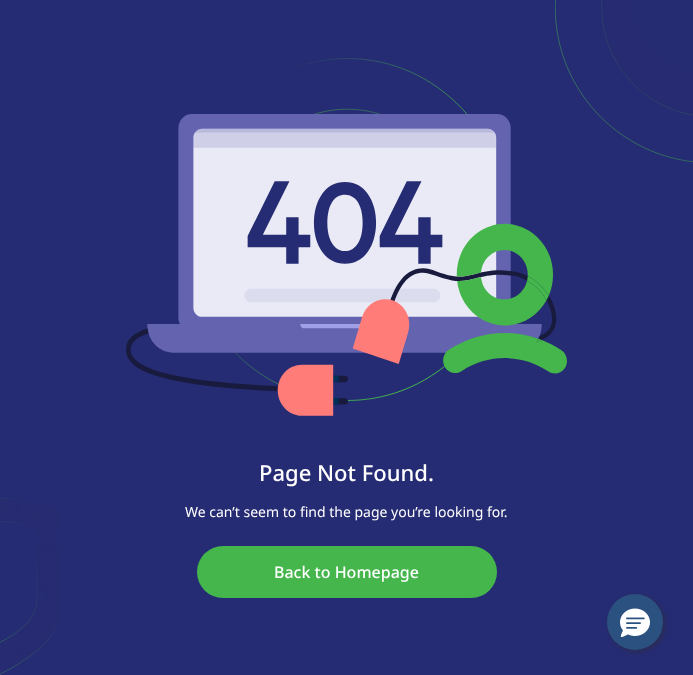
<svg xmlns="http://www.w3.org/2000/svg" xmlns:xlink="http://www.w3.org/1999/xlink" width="693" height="675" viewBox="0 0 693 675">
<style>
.cls-1{font:500 22px Noto Sans;fill:#ffffff}
.cls-2{font:14px Noto Sans;fill:#ffffff}
.cls-3{font:500 16px Noto Sans;fill:#ffffff}
</style>
<rect width="100%" height="100%" fill="#262c73"/>
<image xlink:href="image0.png" x="555" y="0" width="138" height="163"/>
<image xlink:href="image1.png" x="0" y="498" width="60" height="177"/>
<image xlink:href="image2.png" x="126" y="58" width="441" height="358"/>
<rect fill="#44b64b" x="197" y="546" width="300" height="52" rx="26"/>
<rect fill="#2d2d2d" fill-opacity="0.5" filter="blur(2.5px)" x="609" y="596" width="56" height="56" rx="28"/>
<circle fill="#2b5180" cx="635" cy="622" r="28"/>
<image xlink:href="image3.png" x="620" y="608" width="30" height="29"/>
<text class="cls-1" x="259" y="481">Page Not Found.</text>
<text class="cls-2" x="185" y="517">We can’t seem to find the page you’re looking for.</text>
<text class="cls-3" x="274" y="578">Back to Homepage</text>
</svg>
